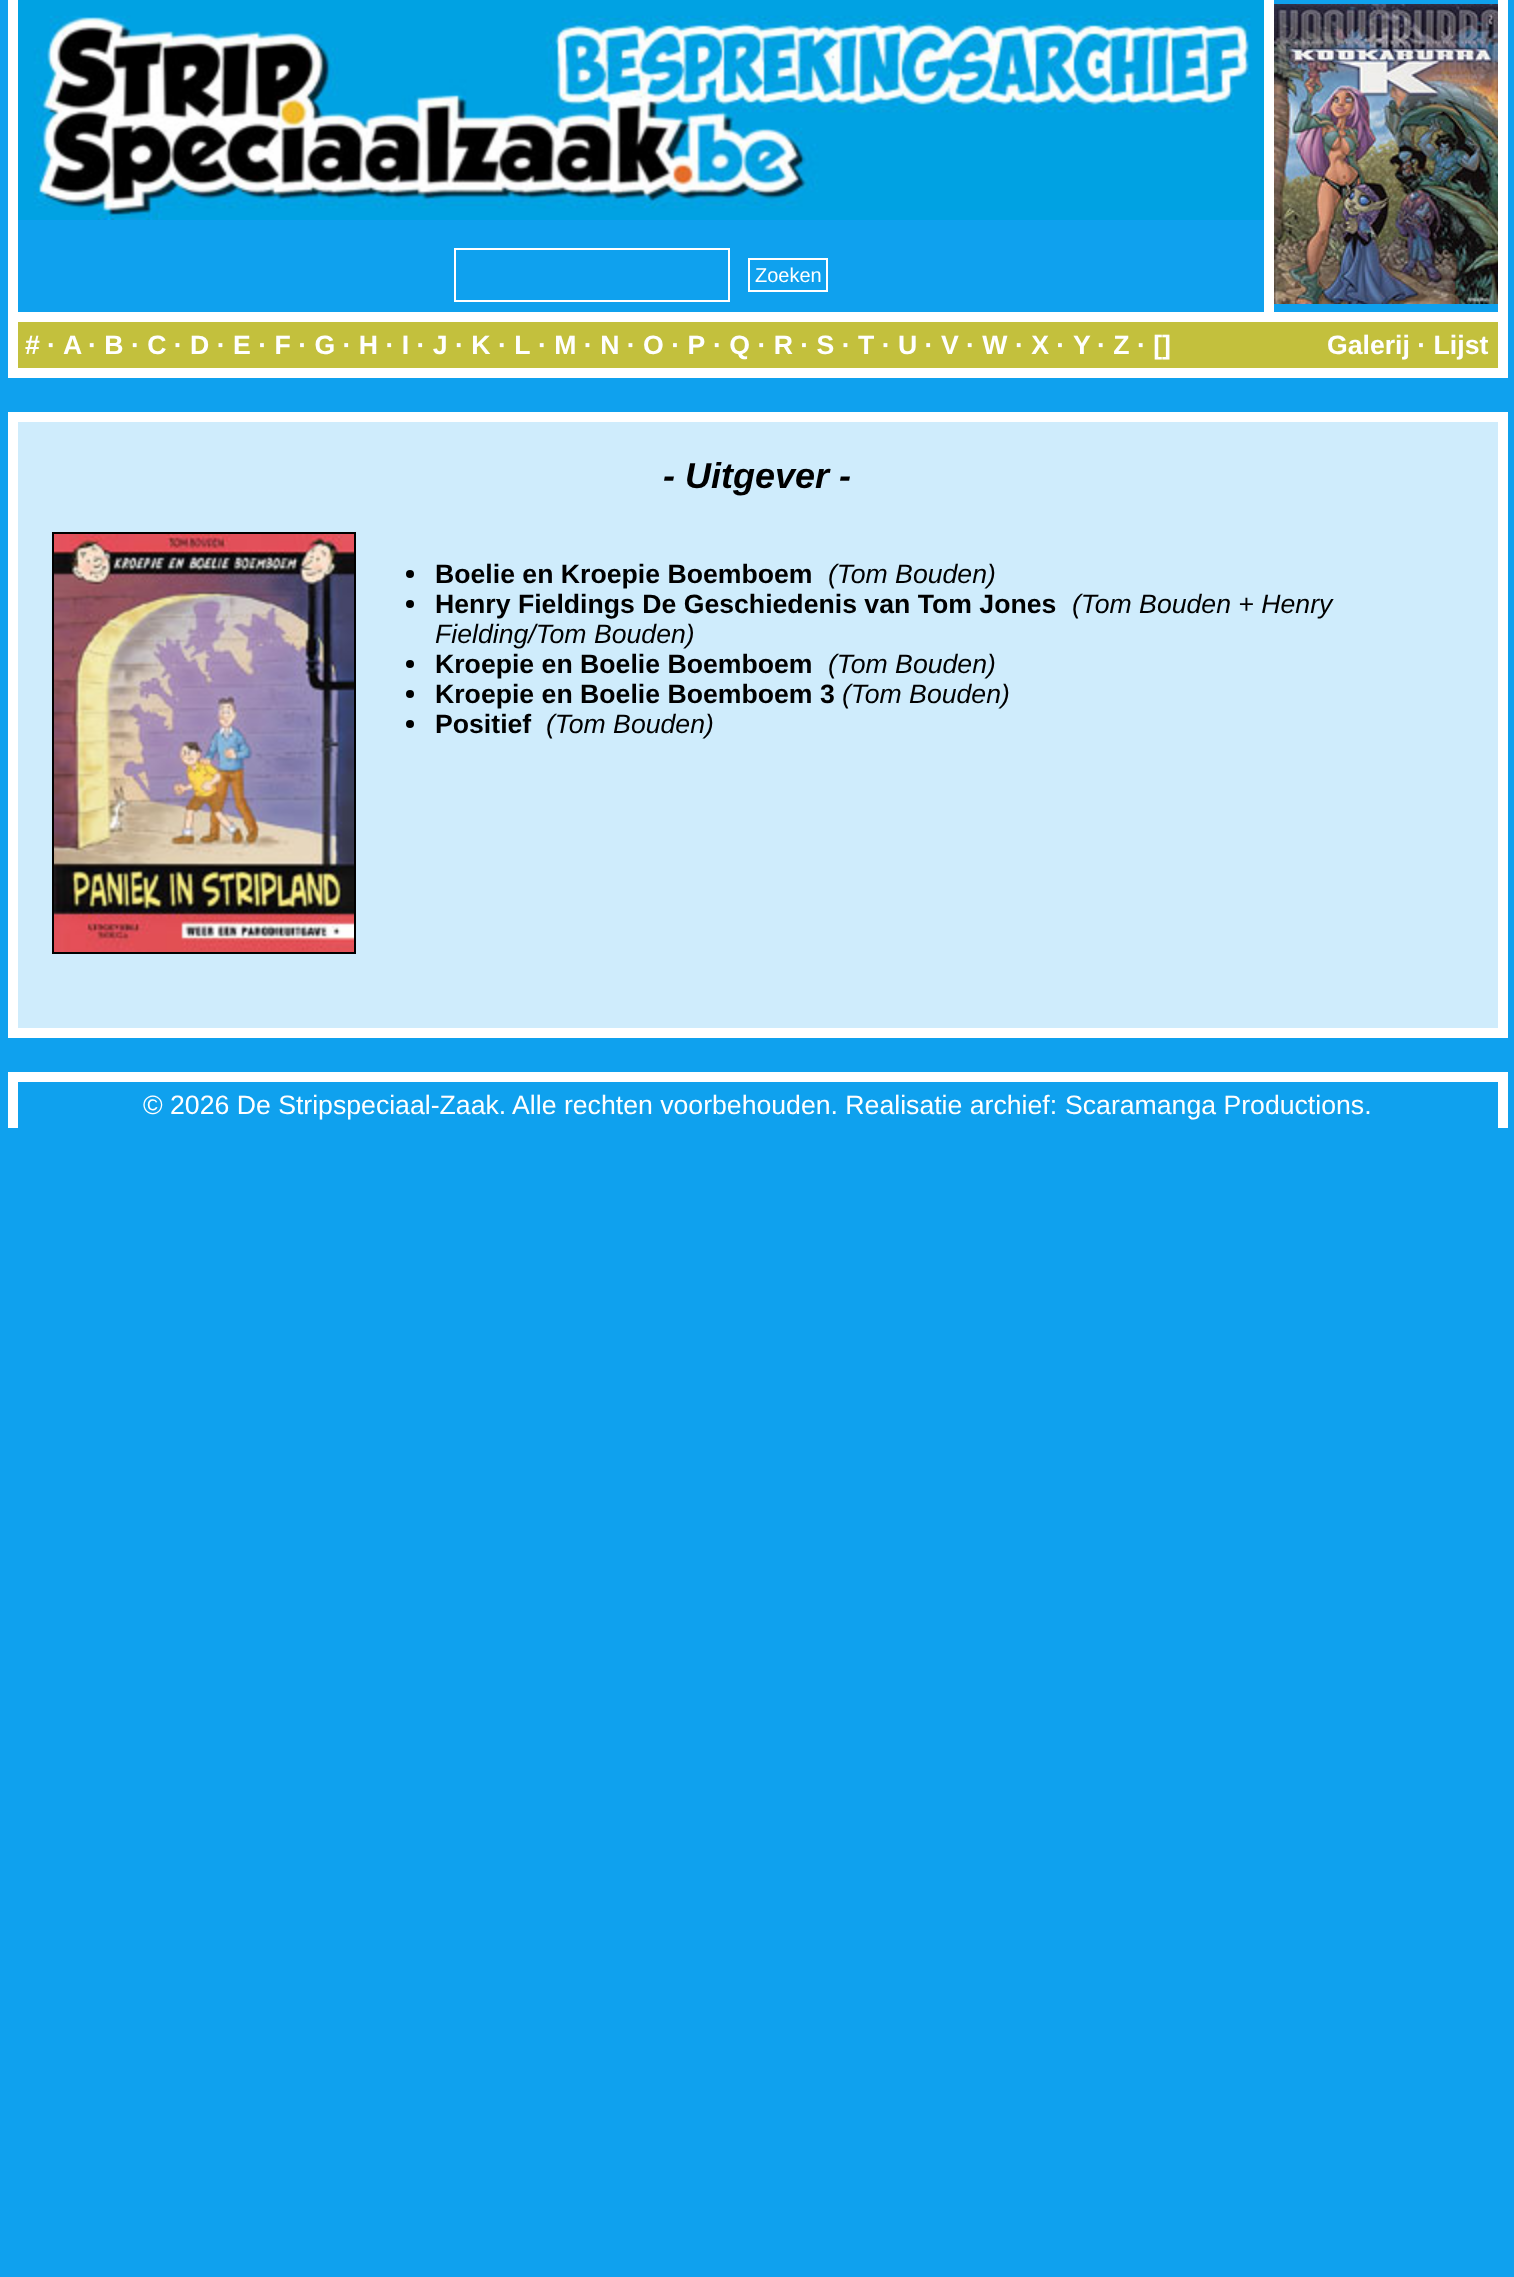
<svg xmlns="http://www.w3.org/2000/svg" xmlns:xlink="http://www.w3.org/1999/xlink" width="1514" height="2277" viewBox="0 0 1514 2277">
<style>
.cls-1{font:20px Liberation Sans;fill:#ffffff}
.cls-2{font:bold 26.65px Liberation Sans;fill:#ffffff}
.cls-3{font:italic bold 36px Liberation Sans;fill:#000000}
.cls-4{font:bold 26.65px Liberation Sans;fill:#000000}
.cls-5{font:italic 26.65px Liberation Sans;fill:#000000}
.cls-6{font:26.65px Liberation Sans;fill:#ffffff}
</style>
<rect width="100%" height="100%" fill="#0fa1ee"/>
<rect fill="#ffffff" x="1498" y="0" width="10" height="368"/>
<rect fill="#ffffff" x="18" y="368" width="1490" height="10"/>
<rect fill="#ffffff" x="8" y="0" width="10" height="378"/>
<image xlink:href="image0.png" x="18" y="0" width="1246" height="220"/>
<rect fill="none" stroke="#ffffff" stroke-width="2" x="455" y="249" width="274" height="52"/>
<rect fill="none" stroke="#ffffff" stroke-width="2" x="749" y="259" width="78" height="32"/>
<rect fill="#ffffff" x="1264" y="0" width="10" height="312"/>
<image xlink:href="image1.png" x="1274" y="4" width="224" height="300"/>
<rect fill="#ffffff" x="18" y="312" width="1480" height="10"/>
<rect fill="#c3c03d" x="18" y="322" width="1480" height="46"/>
<rect fill="#cfecfc" stroke="#ffffff" stroke-width="10" x="13" y="417" width="1490" height="616"/>
<rect fill="none" stroke="#000000" stroke-width="2" x="53" y="533" width="302" height="420"/>
<image xlink:href="image2.png" x="54" y="534" width="300" height="418"/>
<circle fill="#000000" cx="410" cy="574" r="4"/>
<circle fill="#000000" cx="410" cy="604" r="4"/>
<circle fill="#000000" cx="410" cy="664" r="4"/>
<circle fill="#000000" cx="410" cy="694" r="4"/>
<circle fill="#000000" cx="410" cy="724" r="4"/>
<rect fill="#ffffff" x="18" y="1072" width="1480" height="10"/>
<rect fill="#ffffff" x="1498" y="1072" width="10" height="56"/>
<rect fill="#ffffff" x="8" y="1072" width="10" height="56"/>
<text class="cls-1" x="755" y="282">Zoeken</text>
<text class="cls-2" x="25" y="354">#</text>
<text class="cls-2" x="47" y="354">·</text>
<text class="cls-2" x="63" y="354">A</text>
<text class="cls-2" x="88" y="354">· B · C · D · E · F · G · H · I · J · K · L</text>
<text class="cls-2" x="538" y="354">· M · N · O · P</text>
<text class="cls-2" x="713" y="354">· Q · R · S · T · U · V · W · X ·</text>
<text class="cls-2" x="1073" y="354">Y</text>
<text class="cls-2" x="1097" y="354">· Z · []</text>
<text class="cls-2" x="1327" y="354">Galerij · Lijst</text>
<text class="cls-3" x="663" y="488">- Uitgever -</text>
<text class="cls-4" x="435" y="583">Boelie en Kroepie Boemboem</text>
<text class="cls-5" x="828" y="583">(Tom Bouden)</text>
<text class="cls-4" x="435" y="613">Henry Fieldings De Geschiedenis van Tom Jones</text>
<text class="cls-5" x="1072" y="613">(Tom Bouden + Henry</text>
<text class="cls-5" x="435" y="643">Fielding/Tom Bouden)</text>
<text class="cls-4" x="435" y="673">Kroepie en Boelie Boemboem</text>
<text class="cls-5" x="828" y="673">(Tom Bouden)</text>
<text class="cls-4" x="435" y="703">Kroepie en Boelie Boemboem 3</text>
<text class="cls-5" x="842" y="703">(Tom Bouden)</text>
<text class="cls-4" x="435" y="733">Positief</text>
<text class="cls-5" x="546" y="733">(Tom Bouden)</text>
<text class="cls-6" x="143" y="1114">© 2026 De Stripspeciaal-Zaak. Alle rechten voorbehouden. Realisatie archief:</text>
<text class="cls-6" x="1065" y="1114">Scaramanga Productions.</text>
</svg>
